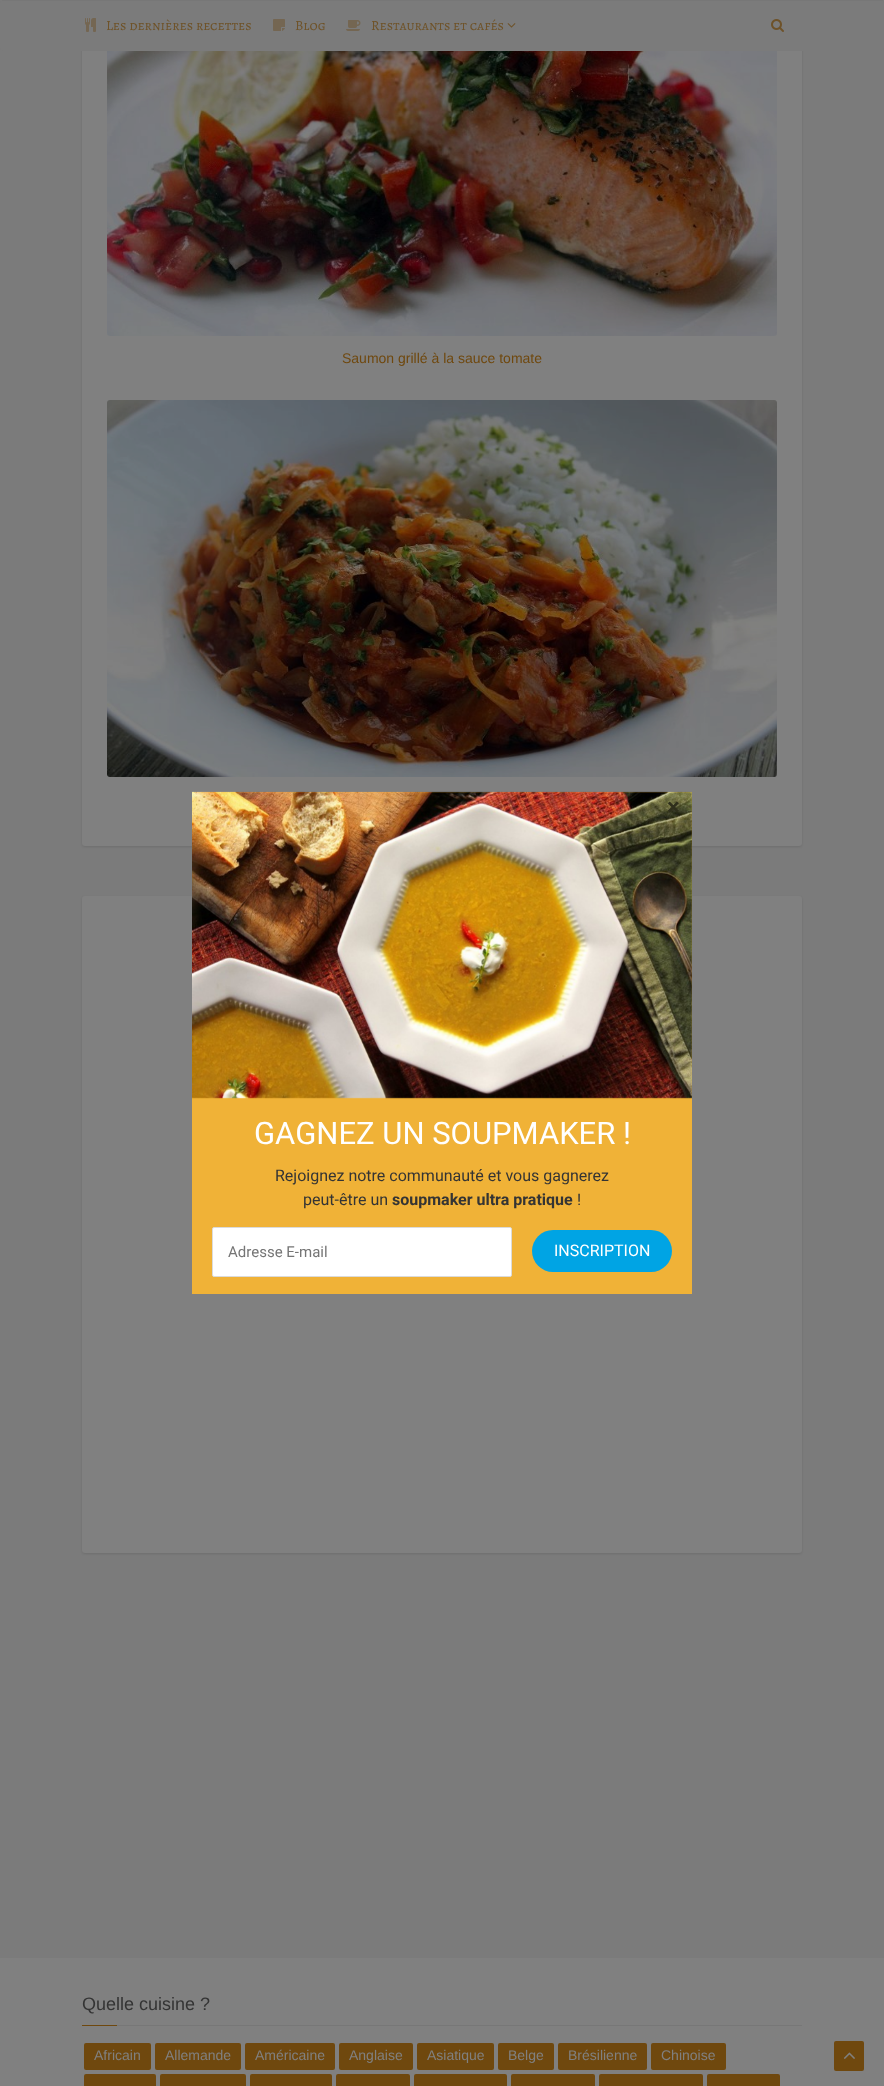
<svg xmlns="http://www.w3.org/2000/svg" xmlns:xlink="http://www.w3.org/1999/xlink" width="884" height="2086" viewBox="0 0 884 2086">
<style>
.cls-1{font:14px Alegreya SC;fill:#6f5329}
.cls-2{font:14px Liberation Sans;fill:#6f480e}
.cls-3{font:bold 24px Roboto;fill:#2f2f1c}
.cls-4{font:31px Roboto;fill:#ffffff}
.cls-5{font:16px Roboto;fill:#343434}
.cls-6{font:bold 16px Roboto;fill:#343434}
.cls-7{font:15px Roboto;fill:#757575}
.cls-8{font:16px Roboto;fill:#ffffff}
.cls-9{font:18px Liberation Sans;fill:#343434}
.cls-10{font:14px Liberation Sans;fill:#808080}
</style>
<rect width="100%" height="100%" fill="#7b7b7b"/>
<rect fill="#000000" fill-opacity="0.1" filter="blur(1px)" x="82" y="-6" width="720" height="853" rx="3"/>
<rect fill="#808080" x="82" y="-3" width="720" height="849" rx="3"/>
<rect fill="#7b7b7b" x="0" y="0" width="884" height="51" rx="3"/>
<rect fill="#777777" x="2" y="0" width="881" height="1"/>
<image xlink:href="image0.png" x="85" y="18" width="11" height="14"/>
<image xlink:href="image1.png" x="273" y="19" width="12" height="12"/>
<image xlink:href="image2.png" x="346" y="20" width="15" height="11"/>
<image xlink:href="image3.png" x="507" y="23" width="9" height="5"/>
<image xlink:href="image4.png" x="771" y="19" width="13" height="13"/>
<image xlink:href="image5.png" x="107" y="51" width="670" height="285"/>
<image xlink:href="image6.png" x="107" y="400" width="670" height="377"/>
<rect fill="#000000" fill-opacity="0.1" filter="blur(1px)" x="82" y="897" width="720" height="657" rx="3"/>
<rect fill="#808080" x="82" y="896" width="720" height="657" rx="3"/>
<rect fill="#f0b237" x="192" y="792" width="500" height="502"/>
<image xlink:href="image7.png" x="192" y="791" width="500" height="308"/>
<rect fill="#ffffff" stroke="#dbdbdb" x="212.5" y="1227.5" width="299" height="49" rx="1.5"/>
<rect fill="#00a4e4" x="532" y="1230" width="140" height="42" rx="21"/>
<rect fill="#808080" x="0" y="1958" width="884" height="128"/>
<rect fill="#777777" x="117" y="2025" width="685" height="1"/>
<rect fill="#6f480e" x="82" y="2025" width="35" height="1"/>
<rect fill="#6f480e" x="84" y="2043" width="67" height="27" rx="2"/>
<rect fill="#6f480e" x="155" y="2043" width="86" height="27" rx="2"/>
<rect fill="#6f480e" x="245" y="2043" width="90" height="27" rx="2"/>
<rect fill="#6f480e" x="339" y="2043" width="74" height="27" rx="2"/>
<rect fill="#6f480e" x="417" y="2043" width="77" height="27" rx="2"/>
<rect fill="#6f480e" x="498" y="2043" width="56" height="27" rx="2"/>
<rect fill="#6f480e" x="558" y="2043" width="89" height="27" rx="2"/>
<rect fill="#6f480e" x="651" y="2043" width="75" height="27" rx="2"/>
<rect fill="#6f480e" x="84" y="2074" width="72" height="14" rx="2"/>
<rect fill="#6f480e" x="160" y="2074" width="86" height="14" rx="2"/>
<rect fill="#6f480e" x="250" y="2074" width="82" height="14" rx="2"/>
<rect fill="#6f480e" x="336" y="2074" width="74" height="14" rx="2"/>
<rect fill="#6f480e" x="414" y="2074" width="93" height="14" rx="2"/>
<rect fill="#6f480e" x="511" y="2074" width="84" height="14" rx="2"/>
<rect fill="#6f480e" x="599" y="2074" width="104" height="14" rx="2"/>
<rect fill="#6f480e" x="707" y="2074" width="73" height="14" rx="2"/>
<rect fill="#6f480e" x="834" y="2041" width="30" height="30" rx="2"/>
<image xlink:href="image8.png" x="843" y="2052" width="12" height="7"/>
<text class="cls-1" x="106" y="30">Les dernières recettes</text>
<text class="cls-1" x="295" y="30">Blog</text>
<text class="cls-1" x="371" y="30">Restaurants et cafés</text>
<text class="cls-2" x="342" y="363">Saumon grillé à la sauce tomate</text>
<text class="cls-3" x="667" y="815">×</text>
<text class="cls-4" x="254" y="1144">GAGNEZ UN SOUPMAKER !</text>
<text class="cls-5" x="275" y="1181">Rejoignez notre communauté et vous gagnerez</text>
<text class="cls-5" x="303" y="1205">peut-être un</text>
<text class="cls-6" x="392" y="1205">soupmaker ultra pratique</text>
<text class="cls-5" x="577" y="1205">!</text>
<text class="cls-7" x="228" y="1257">Adresse E-mail</text>
<text class="cls-8" x="554" y="1256">INSCRIPTION</text>
<text class="cls-9" x="82" y="2010">Quelle cuisine ?</text>
<text class="cls-10" x="94" y="2060">Africain</text>
<text class="cls-10" x="165" y="2060">Allemande</text>
<text class="cls-10" x="255" y="2060">Américaine</text>
<text class="cls-10" x="349" y="2060">Anglaise</text>
<text class="cls-10" x="427" y="2060">Asiatique</text>
<text class="cls-10" x="508" y="2060">Belge</text>
<text class="cls-10" x="568" y="2060">Brésilienne</text>
<text class="cls-10" x="661" y="2060">Chinoise</text>
</svg>
